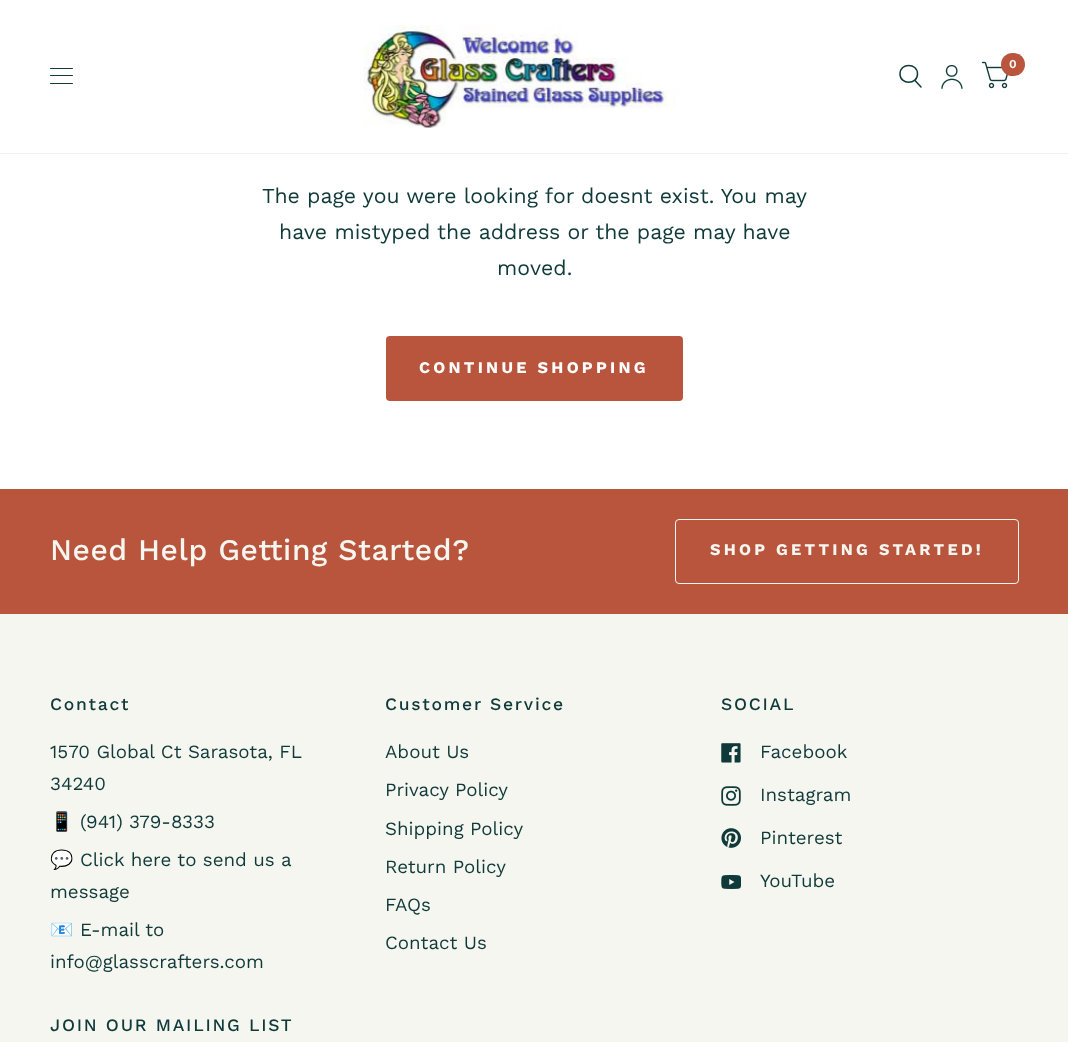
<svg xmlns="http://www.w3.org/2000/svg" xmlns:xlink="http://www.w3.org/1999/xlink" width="1068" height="1042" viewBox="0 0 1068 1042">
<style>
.cls-1{font:600 12px Work Sans;fill:#ffffff}
.cls-2{font:21.25px Work Sans;fill:#103a3a}
.cls-3{font:bold 16.25px Work Sans;letter-spacing:3.25px;fill:#ffffff}
.cls-4{font:500 30px Work Sans;letter-spacing:0.6px;fill:#f6f6f0}
.cls-5{font:bold 16.25px Work Sans;letter-spacing:3.25px;fill:#f6f6f0}
.cls-6{font:500 17.5px Work Sans;letter-spacing:1.75px;fill:#103a3a}
.cls-7{font:18.75px Work Sans;fill:#103a3a}
.cls-8{font:18.75px Noto Color Emoji;fill:#103a3a}
</style>
<rect width="100%" height="100%" fill="#ffffff"/>
<rect fill="#eeeeee" x="0" y="153" width="1068" height="1"/>
<image xlink:href="image0.png" x="363" y="25" width="313" height="103"/>
<path fill="none" stroke="#103a3a" stroke-width="1.5" stroke-linecap="round" stroke-linejoin="round" d="M915 80.5L921 87M917.5 74C917.5 85 900 85 900 74C900 62.5 917.5 62.5 917.5 74Z"/>
<image xlink:href="image1.png" x="941" y="64" width="22" height="25"/>
<image xlink:href="image2.png" x="981" y="61" width="27" height="28"/>
<rect fill="#b9553c" x="1001" y="53" width="24" height="23" rx="11.5"/>
<rect fill="#103a3a" x="50" y="68" width="23" height="1" rx="0.5"/>
<rect fill="#103a3a" x="50" y="75" width="23" height="1" rx="0.5"/>
<rect fill="#103a3a" x="50" y="83" width="23" height="1" rx="0.5"/>
<rect fill="#b9553c" x="386" y="336" width="297" height="65" rx="4"/>
<rect fill="#b9553c" x="0" y="489" width="1068" height="125"/>
<rect fill="none" stroke="#f6f6f0" x="675.5" y="519.5" width="343" height="64" rx="3.5"/>
<rect fill="#f6f6f0" x="0" y="614" width="1068" height="428"/>
<image xlink:href="image3.png" x="721" y="743" width="20" height="20"/>
<image xlink:href="image4.png" x="721" y="786" width="20" height="20"/>
<image xlink:href="image5.png" x="721" y="828" width="20" height="20"/>
<image xlink:href="image6.png" x="721" y="875" width="20" height="14"/>
<text class="cls-1" x="1009" y="68">0</text>
<text class="cls-2" x="262" y="203">The page you were looking for doesnt exist. You may</text>
<text class="cls-2" x="279" y="239">have mistyped the address or the page may have</text>
<text class="cls-2" x="497" y="275">moved.</text>
<text class="cls-3" x="419" y="373">CONTINUE SHOPPING</text>
<text class="cls-4" x="50" y="560">Need Help Getting Started?</text>
<text class="cls-5" x="710" y="555">SHOP GETTING STARTED!</text>
<text class="cls-6" x="50" y="710">Contact</text>
<text class="cls-7"><tspan x="50" y="758">1570 Global Ct Sarasota, FL</tspan><tspan x="50" y="790">34240</tspan></text>
<text class="cls-8" x="50" y="828">📱</text>
<text class="cls-7" x="80" y="828">(941) 379-8333</text>
<text class="cls-8" x="50" y="866">💬</text>
<text class="cls-7" x="80" y="866">Click here to send us a</text>
<text class="cls-7" x="50" y="898">message</text>
<text class="cls-8" x="50" y="936">📧</text>
<text class="cls-7" x="80" y="936">E-mail to</text>
<text class="cls-7" x="50" y="968">info@glasscrafters.com</text>
<text class="cls-6" x="385" y="710">Customer Service</text>
<text class="cls-7" x="385" y="758">About Us</text>
<text class="cls-7" x="385" y="796">Privacy Policy</text>
<text class="cls-7" x="385" y="835">Shipping Policy</text>
<text class="cls-7" x="385" y="873">Return Policy</text>
<text class="cls-7" x="385" y="911">FAQs</text>
<text class="cls-7" x="385" y="949">Contact Us</text>
<text class="cls-6" x="721" y="710">SOCIAL</text>
<text class="cls-7" x="760" y="758">Facebook</text>
<text class="cls-7" x="760" y="801">Instagram</text>
<text class="cls-7" x="760" y="844">Pinterest</text>
<text class="cls-7" x="760" y="887">YouTube</text>
<text class="cls-6" x="50" y="1031">JOIN OUR MAILING LIST</text>
</svg>
